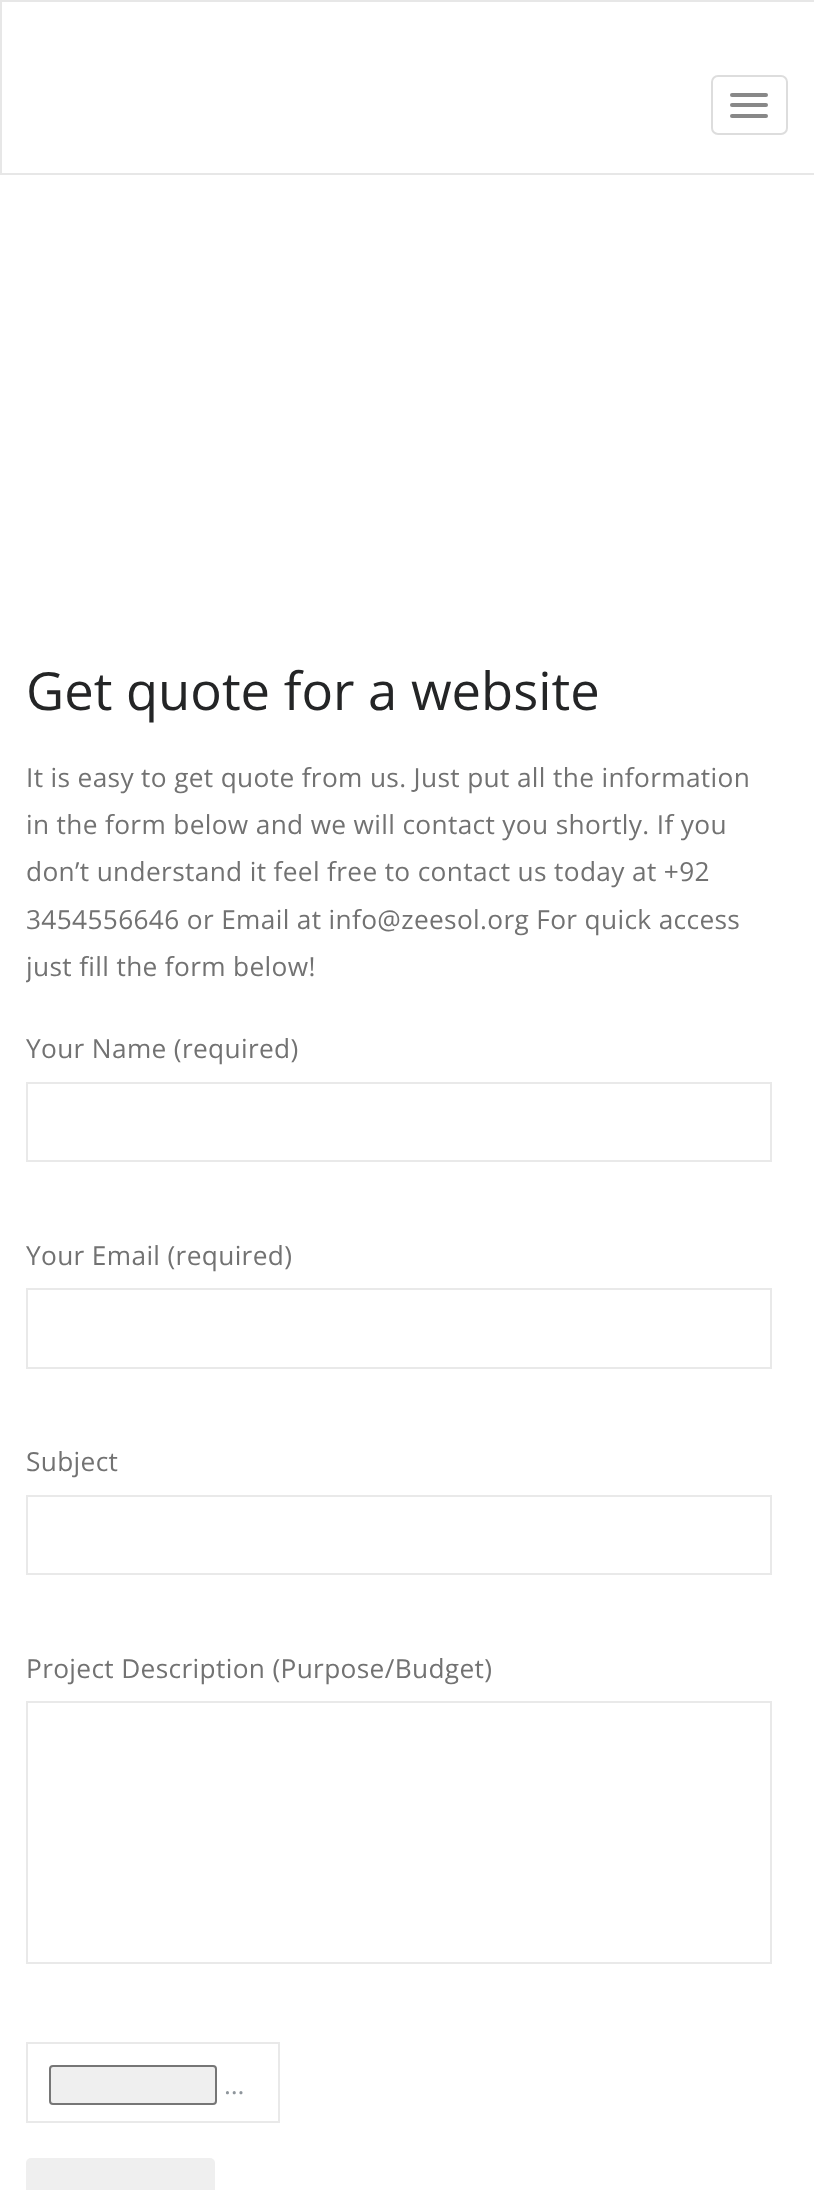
<svg xmlns="http://www.w3.org/2000/svg" xmlns:xlink="http://www.w3.org/1999/xlink" width="814" height="2190" viewBox="0 0 814 2190">
<style>
.cls-1{font:52.5px Open Sans;fill:#242526}
.cls-2{font:26.25px Open Sans;letter-spacing:0.35px;fill:#727272}
.cls-3{font:26.25px Open Sans;fill:#8f969c}
</style>
<defs>
<clipPath id="clip1"><rect x="26" y="662" width="763" height="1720"/></clipPath>
</defs>
<rect width="100%" height="100%" fill="#ffffff"/>
<rect fill="none" stroke="#e7e7e7" stroke-width="2" x="1" y="1" width="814" height="173"/>
<rect fill="none" stroke="#dddddd" stroke-width="2" x="712" y="76" width="75" height="58" rx="6"/>
<rect fill="#888888" x="730" y="93" width="38" height="4" rx="2"/>
<rect fill="#888888" x="730" y="103" width="38" height="4" rx="2"/>
<rect fill="#888888" x="730" y="114" width="38" height="4" rx="2"/>
<rect fill="none" stroke="#e9e9e9" stroke-width="2" x="27" y="1083" width="744" height="78"/>
<rect fill="none" stroke="#e9e9e9" stroke-width="2" x="27" y="1289" width="744" height="79"/>
<rect fill="none" stroke="#e9e9e9" stroke-width="2" x="27" y="1496" width="744" height="78"/>
<rect fill="none" stroke="#e9e9e9" stroke-width="2" x="27" y="1702" width="744" height="261"/>
<rect fill="none" stroke="#e9e9e9" stroke-width="2" x="27" y="2043" width="252" height="79"/>
<rect fill="#efefef" stroke="#767676" stroke-width="2" x="50" y="2066" width="166" height="38" rx="3"/>
<rect fill="#efefef" x="26" y="2158" width="189" height="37" rx="5"/>
<text class="cls-1" x="26" y="710">Get quote for a website</text>
<text class="cls-2"><tspan x="26" y="787">It is easy to get quote from us. Just put all the information</tspan><tspan x="26" y="834">in the form below and we will contact you shortly. If you</tspan><tspan x="26" y="881">don’t understand it feel free to contact us today at +92</tspan><tspan x="26" y="929">3454556646 or Email at info@zeesol.org For quick access</tspan></text>
<g clip-path="url(#clip1)">
<text class="cls-2" x="26" y="976">just fill the form below!</text>
</g>
<text class="cls-2" x="26" y="1058">Your Name (required)</text>
<text class="cls-2" x="26" y="1265">Your Email (required)</text>
<text class="cls-2" x="26" y="1471">Subject</text>
<text class="cls-2" x="26" y="1678">Project Description (Purpose/Budget)</text>
<text class="cls-3" x="224" y="2094">…</text>
</svg>
